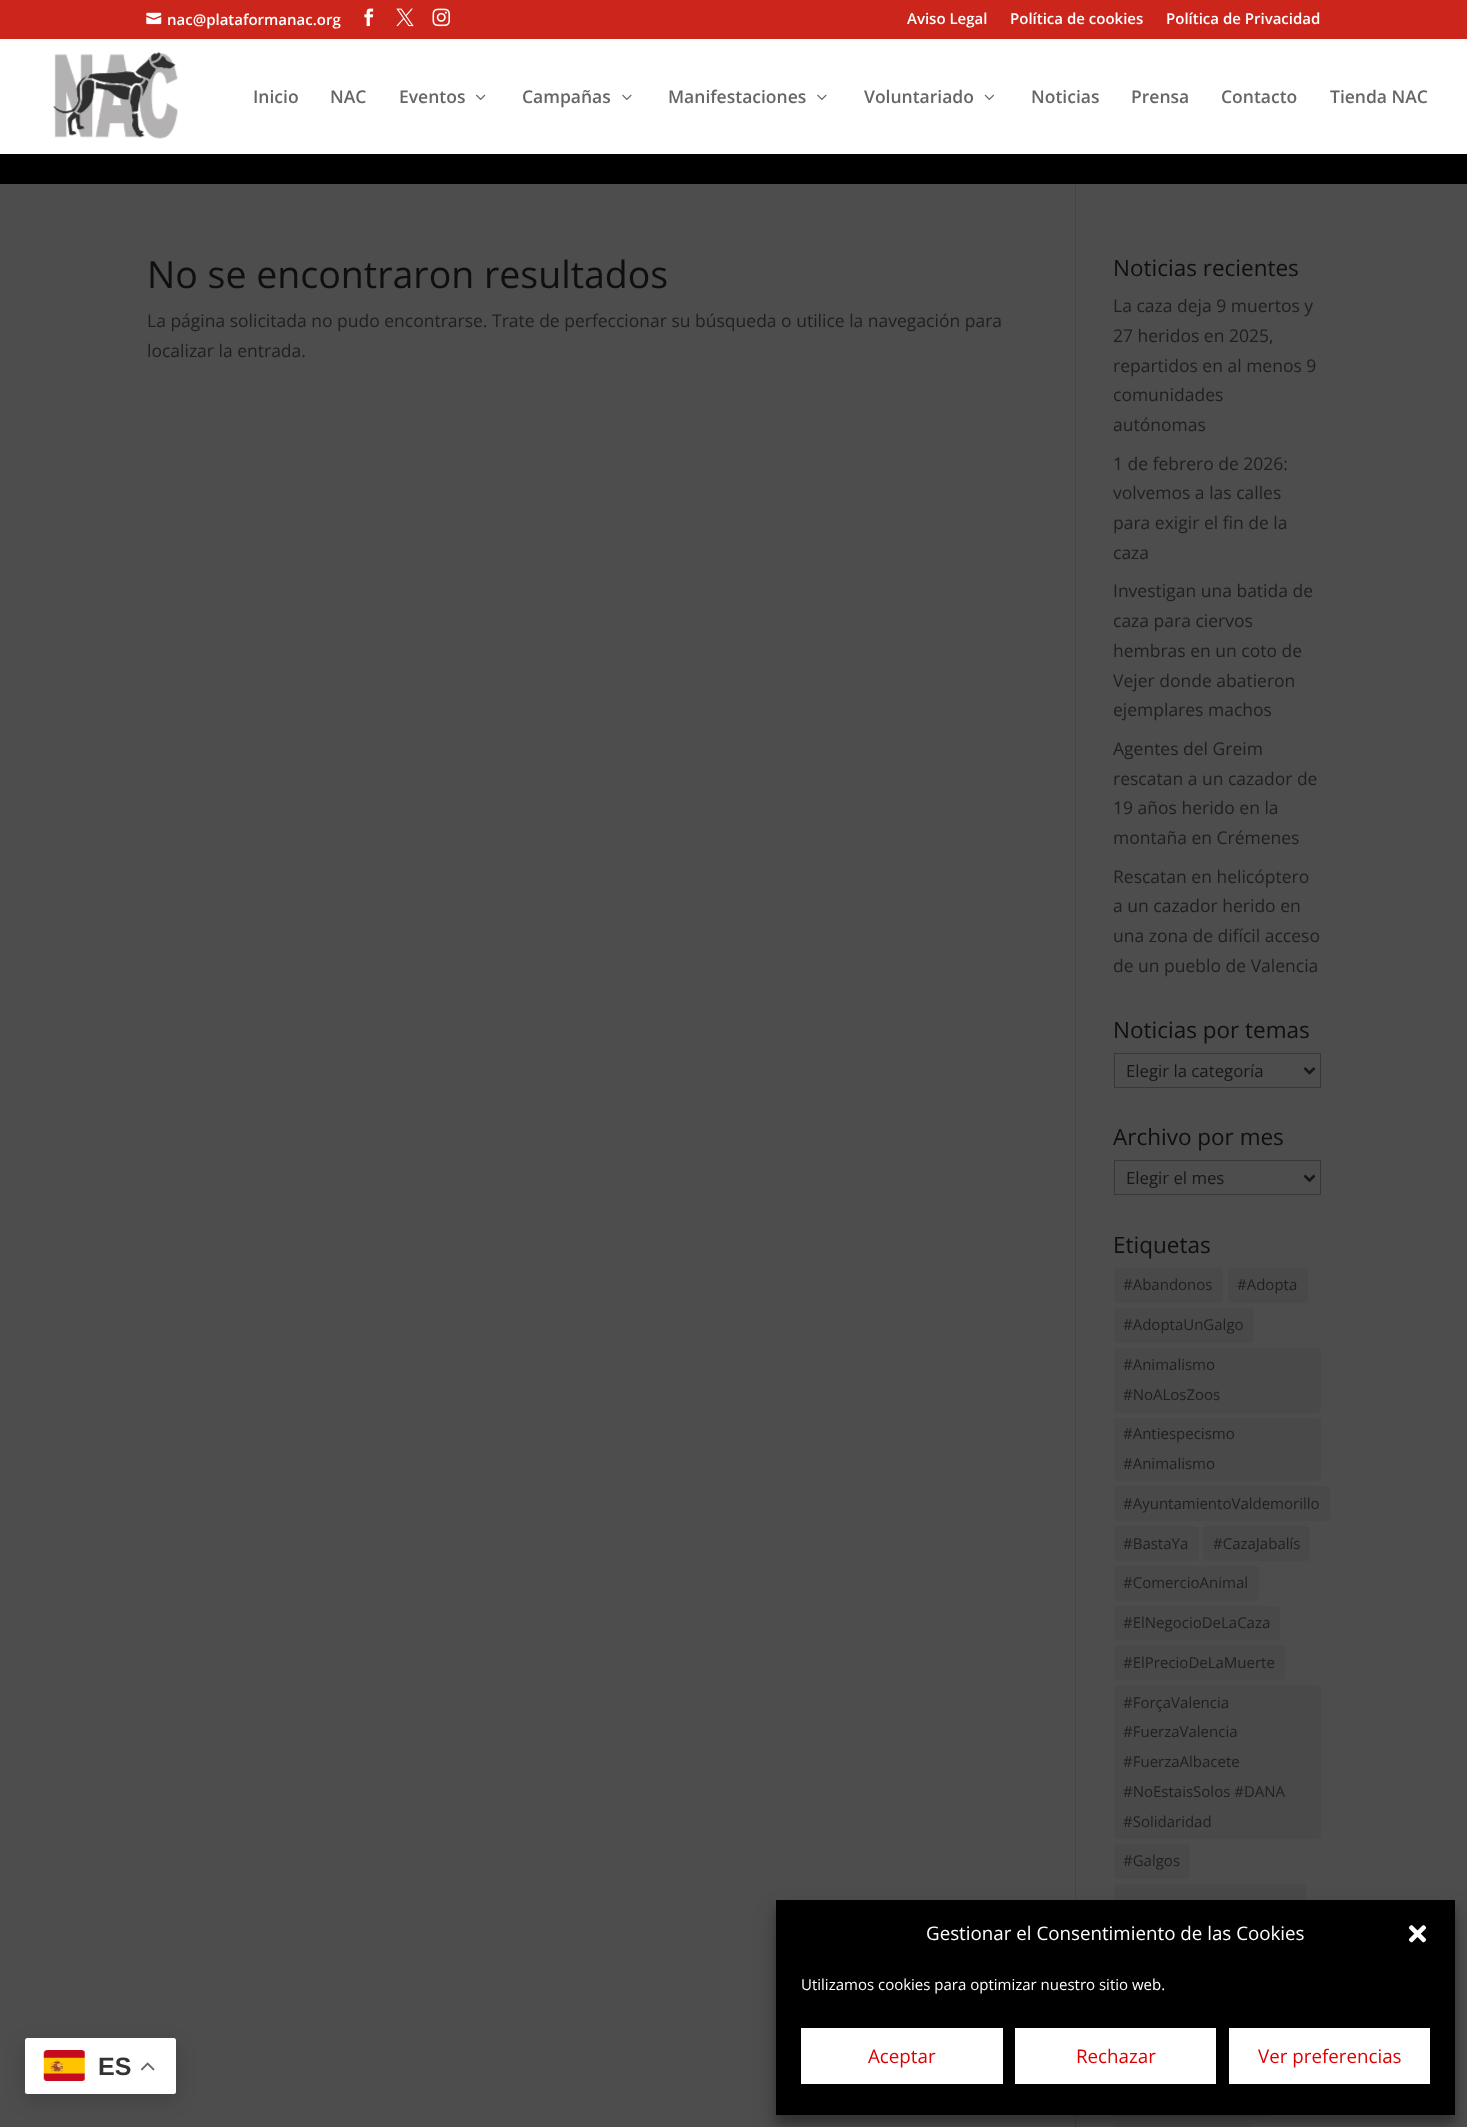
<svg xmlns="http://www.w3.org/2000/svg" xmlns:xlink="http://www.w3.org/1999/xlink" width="1467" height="2127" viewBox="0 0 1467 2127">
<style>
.cls-1{font:600 15px Open Sans;fill:#ffffff}
.cls-2{font:600 17.5px Open Sans;fill:#666666}
.cls-3{font:37.5px Open Sans;fill:#0f0f0f}
.cls-4{font:17.5px Open Sans;fill:#1f1f1f}
.cls-5{font:22.5px Open Sans;fill:#0f0f0f}
.cls-6{font:16.75px Open Sans;fill:#171717}
.cls-7{font:15px Open Sans;fill:#1f1f1f}
.cls-8{font:bold 25px Liberation Sans;fill:#333333}
.cls-9{font:18.75px Open Sans;fill:#ffffff}
.cls-10{font:15px Open Sans;fill:#ffffff}
.cls-11{font:18.75px Open Sans;fill:#dd0000}
</style>
<rect width="100%" height="100%" fill="#000000"/>
<rect fill="#cc251c" x="0" y="0" width="1467" height="39"/>
<image xlink:href="image0.png" x="146" y="12" width="16" height="13"/>
<image xlink:href="image1.png" x="364" y="8" width="10" height="19"/>
<image xlink:href="image2.png" x="396" y="8" width="18" height="19"/>
<image xlink:href="image3.png" x="432" y="8" width="18" height="19"/>
<rect fill="#ffffff" x="0" y="39" width="1467" height="115"/>
<image xlink:href="image4.png" x="53" y="52" width="125" height="87"/>
<image xlink:href="image5.png" x="476" y="94" width="10" height="6"/>
<image xlink:href="image6.png" x="622" y="94" width="10" height="6"/>
<image xlink:href="image6.png" x="817" y="94" width="10" height="6"/>
<image xlink:href="image7.png" x="984" y="94" width="10" height="6"/>
<rect fill="#4d4d4d" x="0" y="184" width="1467" height="1943"/>
<rect fill="#444444" x="1075" y="184" width="1" height="1943"/>
<rect fill="none" stroke="#383838" x="1114.5" y="1053.5" width="206" height="34"/>
<path fill="none" stroke="#171717" stroke-width="2.5" d="M1304.5 1068L1309.5 1073L1314.5 1068"/>
<rect fill="none" stroke="#383838" x="1114.5" y="1160.5" width="206" height="34"/>
<path fill="none" stroke="#171717" stroke-width="2.5" d="M1304.5 1175.5L1309.5 1180.5L1314.5 1175.5"/>
<rect fill="#494949" x="1114" y="1268" width="109" height="35" rx="4"/>
<rect fill="#494949" x="1228" y="1268" width="80" height="35" rx="4"/>
<rect fill="#494949" x="1114" y="1308" width="140" height="35" rx="4"/>
<rect fill="#494949" x="1114" y="1348" width="207" height="65" rx="4"/>
<rect fill="#494949" x="1114" y="1418" width="207" height="63" rx="4"/>
<rect fill="#494949" x="1114" y="1486" width="216" height="35" rx="4"/>
<rect fill="#494949" x="1114" y="1526" width="85" height="35" rx="4"/>
<rect fill="#494949" x="1203" y="1526" width="107" height="35" rx="4"/>
<rect fill="#494949" x="1114" y="1566" width="145" height="35" rx="4"/>
<rect fill="#494949" x="1114" y="1606" width="166" height="34" rx="4"/>
<rect fill="#494949" x="1114" y="1645" width="171" height="35" rx="4"/>
<rect fill="#494949" x="1114" y="1685" width="207" height="154" rx="4"/>
<rect fill="#494949" x="1114" y="1844" width="76" height="35" rx="4"/>
<rect fill="#494949" x="1114" y="1884" width="192" height="35" rx="4"/>
<rect fill="#494949" x="1114" y="2083" width="152" height="35" rx="4"/>
<rect fill="#494949" x="1114" y="2123" width="137" height="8" rx="4"/>
<rect fill="#000000" fill-opacity="0.15" filter="blur(9.5px)" x="25" y="2044" width="151" height="56" rx="2.5"/>
<rect fill="#ffffff" x="25" y="2038" width="151" height="56" rx="2.5"/>
<image xlink:href="image8.png" x="43" y="2050" width="42" height="31"/>
<image xlink:href="image9.png" x="141" y="2062" width="14" height="9"/>
<rect fill="#000000" fill-opacity="0.23" filter="blur(4px)" x="776" y="1908" width="679" height="215"/>
<rect fill="#000000" fill-opacity="0.19" filter="blur(12.5px)" x="776" y="1913" width="679" height="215"/>
<rect fill="#000000" x="776" y="1900" width="679" height="215"/>
<image xlink:href="image10.png" x="1408" y="1925" width="19" height="18"/>
<rect fill="#ffffff" x="801" y="2028" width="202" height="56"/>
<rect fill="#ffffff" x="1015" y="2028" width="201" height="56"/>
<rect fill="#ffffff" x="1229" y="2028" width="201" height="56"/>
<text class="cls-1" x="167" y="25">nac@plataformanac.org</text>
<text class="cls-1" x="907" y="24">Aviso Legal</text>
<text class="cls-1" x="1010" y="24">Política de cookies</text>
<text class="cls-1" x="1166" y="24">Política de Privacidad</text>
<text class="cls-2" x="253" y="103">Inicio</text>
<text class="cls-2" x="330" y="103">NAC</text>
<text class="cls-2" x="399" y="103">Eventos</text>
<text class="cls-2" x="522" y="103">Campañas</text>
<text class="cls-2" x="668" y="103">Manifestaciones</text>
<text class="cls-2" x="864" y="103">Voluntariado</text>
<text class="cls-2" x="1031" y="103">Noticias</text>
<text class="cls-2" x="1131" y="103">Prensa</text>
<text class="cls-2" x="1221" y="103">Contacto</text>
<text class="cls-2" x="1330" y="103">Tienda NAC</text>
<text class="cls-3" x="147" y="288">No se encontraron resultados</text>
<text class="cls-4"><tspan x="147" y="327">La página solicitada no pudo encontrarse. Trate de perfeccionar su búsqueda o utilice la navegación para</tspan><tspan x="147" y="357">localizar la entrada.</tspan></text>
<text class="cls-5" x="1113" y="276">Noticias recientes</text>
<text class="cls-4"><tspan x="1113" y="312">La caza deja 9 muertos y</tspan><tspan x="1113" y="342">27 heridos en 2025,</tspan><tspan x="1113" y="372">repartidos en al menos 9</tspan><tspan x="1113" y="401">comunidades</tspan><tspan x="1113" y="431">autónomas</tspan></text>
<text class="cls-4"><tspan x="1113" y="470">1 de febrero de 2026:</tspan><tspan x="1113" y="499">volvemos a las calles</tspan><tspan x="1113" y="529">para exigir el fin de la</tspan><tspan x="1113" y="559">caza</tspan></text>
<text class="cls-4"><tspan x="1113" y="597">Investigan una batida de</tspan><tspan x="1113" y="627">caza para ciervos</tspan><tspan x="1113" y="657">hembras en un coto de</tspan><tspan x="1113" y="687">Vejer donde abatieron</tspan><tspan x="1113" y="716">ejemplares machos</tspan></text>
<text class="cls-4"><tspan x="1113" y="755">Agentes del Greim</tspan><tspan x="1113" y="785">rescatan a un cazador de</tspan><tspan x="1113" y="814">19 años herido en la</tspan><tspan x="1113" y="844">montaña en Crémenes</tspan></text>
<text class="cls-4"><tspan x="1113" y="883">Rescatan en helicóptero</tspan><tspan x="1113" y="912">a un cazador herido en</tspan><tspan x="1113" y="942">una zona de difícil acceso</tspan><tspan x="1113" y="972">de un pueblo de Valencia</tspan></text>
<text class="cls-5" x="1113" y="1038">Noticias por temas</text>
<text class="cls-6" x="1126" y="1077">Elegir la categoría</text>
<text class="cls-5" x="1113" y="1145">Archivo por mes</text>
<text class="cls-6" x="1126" y="1184">Elegir el mes</text>
<text class="cls-5" x="1113" y="1253">Etiquetas</text>
<text class="cls-7" x="1123" y="1290">#Abandonos</text>
<text class="cls-7" x="1237" y="1290">#Adopta</text>
<text class="cls-7" x="1123" y="1330">#AdoptaUnGalgo</text>
<text class="cls-7" x="1123" y="1370">#Animalismo</text>
<text class="cls-7" x="1123" y="1400">#NoALosZoos</text>
<text class="cls-7" x="1123" y="1439">#Antiespecismo</text>
<text class="cls-7" x="1123" y="1469">#Animalismo</text>
<text class="cls-7" x="1123" y="1509">#AyuntamientoValdemorillo</text>
<text class="cls-7" x="1123" y="1549">#BastaYa</text>
<text class="cls-7" x="1213" y="1549">#CazaJabalís</text>
<text class="cls-7" x="1123" y="1588">#ComercioAnimal</text>
<text class="cls-7" x="1123" y="1628">#ElNegocioDeLaCaza</text>
<text class="cls-7" x="1123" y="1668">#ElPrecioDeLaMuerte</text>
<text class="cls-7"><tspan x="1123" y="1708">#ForçaValencia</tspan><tspan x="1123" y="1737">#FuerzaValencia</tspan></text>
<text class="cls-7" x="1123" y="1767">#FuerzaAlbacete</text>
<text class="cls-7" x="1123" y="1797">#NoEstaisSolos #DANA</text>
<text class="cls-7" x="1123" y="1827">#Solidaridad</text>
<text class="cls-7" x="1123" y="1866">#Galgos</text>
<text class="cls-8" x="98" y="2075">ES</text>
<text class="cls-9" x="926" y="1940">Gestionar el Consentimiento de las Cookies</text>
<text class="cls-10" x="801" y="1990">Utilizamos cookies para optimizar nuestro sitio web.</text>
<text class="cls-11" x="868" y="2063">Aceptar</text>
<text class="cls-11" x="1076" y="2063">Rechazar</text>
<text class="cls-11" x="1258" y="2063">Ver preferencias</text>
</svg>
